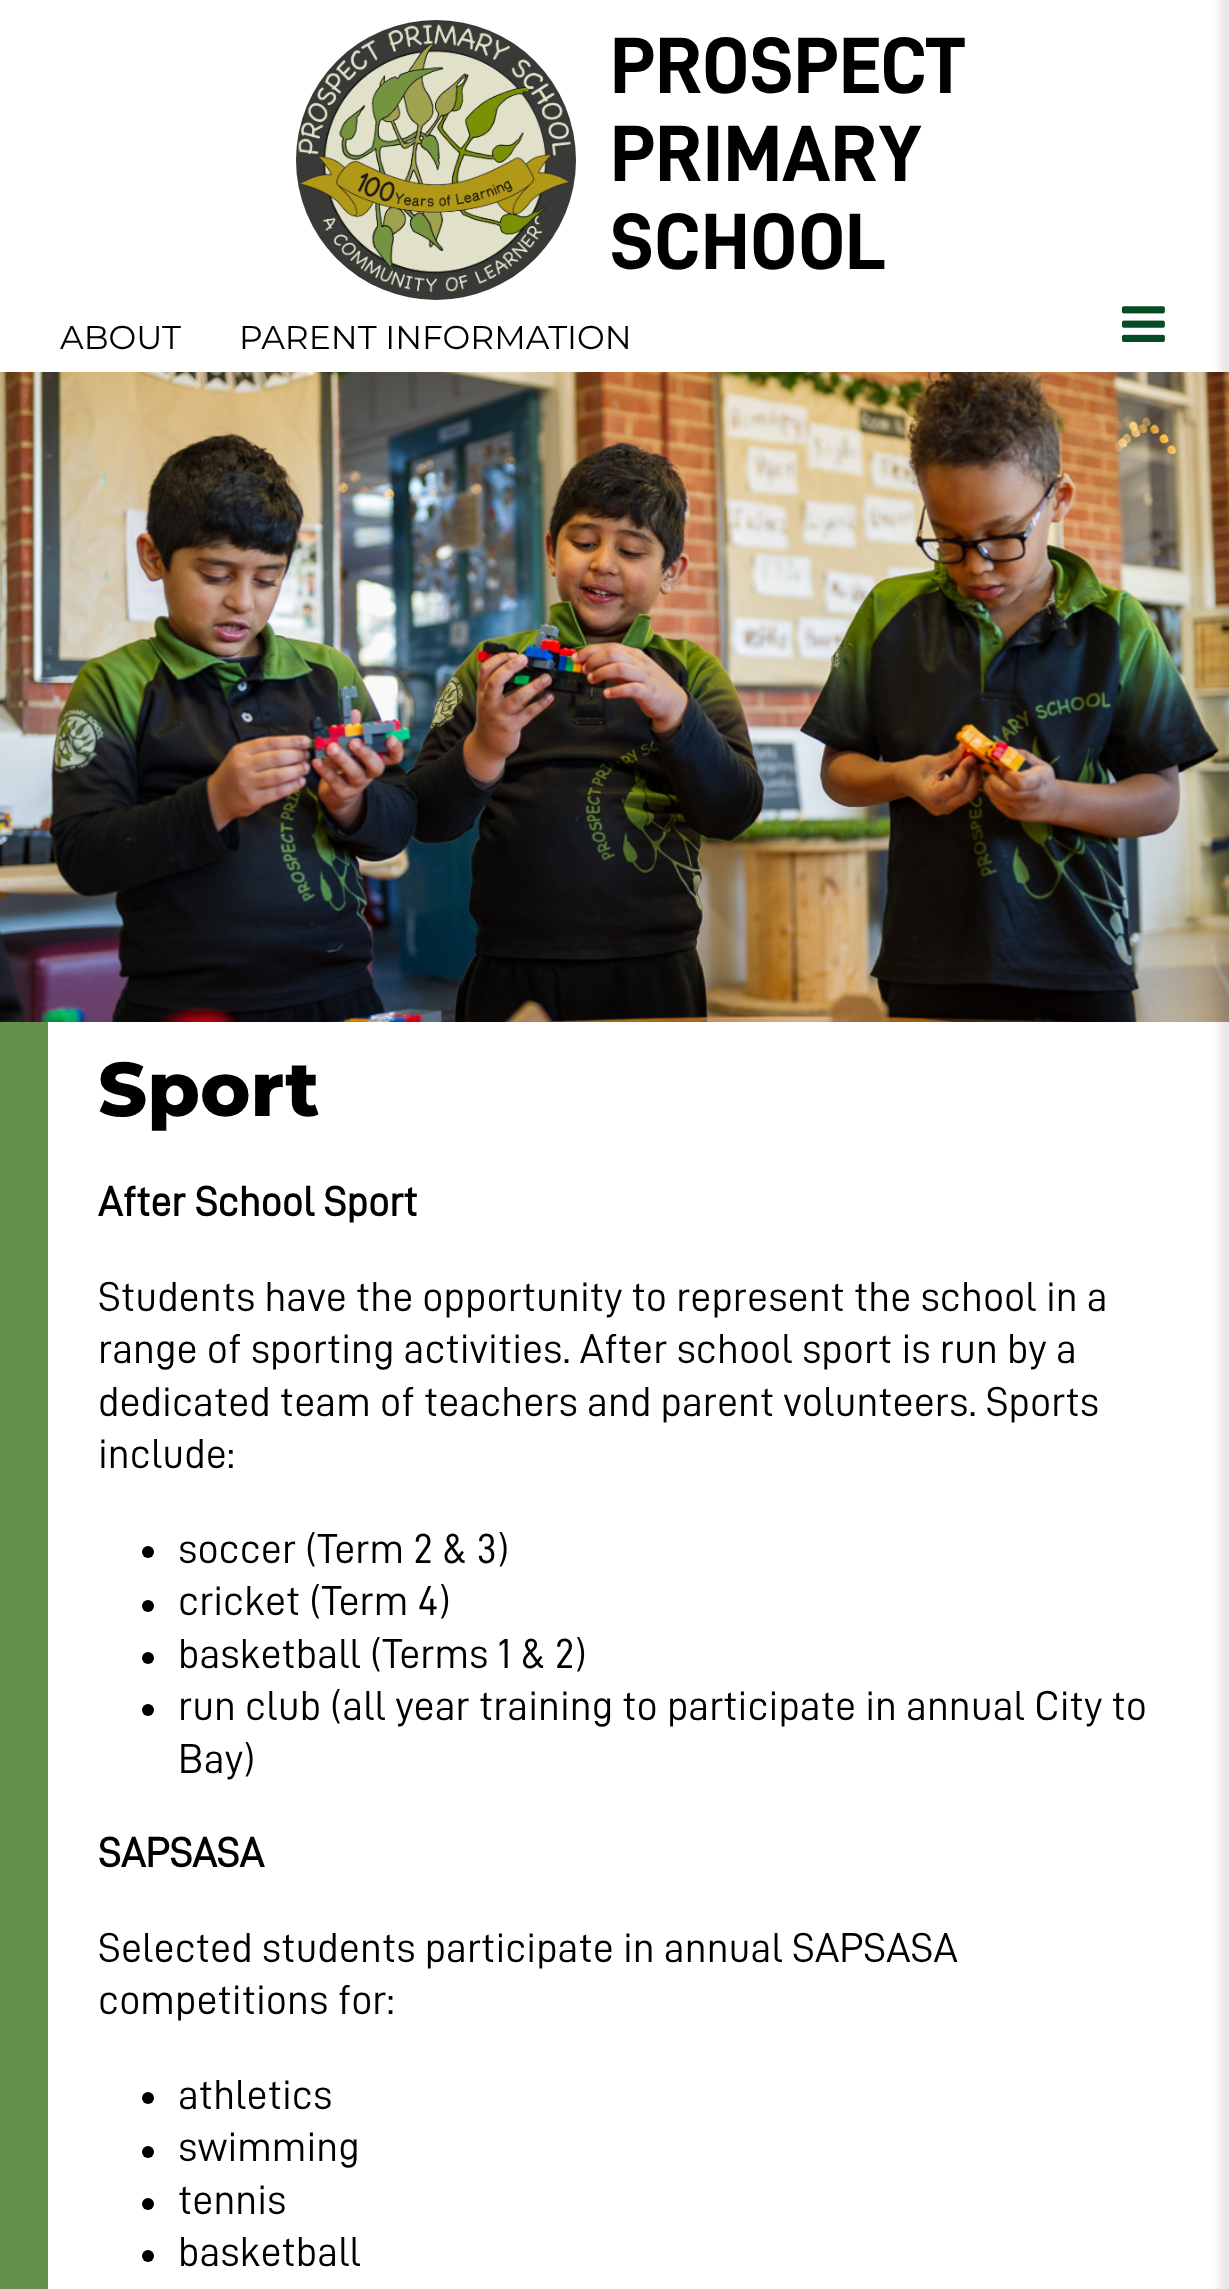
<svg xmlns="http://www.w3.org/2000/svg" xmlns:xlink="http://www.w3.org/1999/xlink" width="1229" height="2289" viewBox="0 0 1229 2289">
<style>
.cls-1{font:bold 80px 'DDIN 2';fill:#000000}
.cls-2{font:33px Montserrat;fill:#000000}
.cls-3{font:800 76px Montserrat;fill:#000000}
.cls-4{font:bold 42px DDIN;fill:#000000}
.cls-5{font:42px DDIN;fill:#000000}
</style>
<rect width="100%" height="100%" fill="#ffffff"/>
<circle fill="#393938" cx="436" cy="160" r="140"/>
<image xlink:href="image0.png" x="298" y="24" width="273" height="268"/>
<image xlink:href="image1.png" x="1122" y="306" width="43" height="36"/>
<image xlink:href="image2.png" x="0" y="372" width="1229" height="650"/>
<rect fill="#000000" fill-opacity="0.1" filter="blur(5px)" x="1220" y="-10" width="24" height="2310"/>
<rect fill="#63914c" x="0" y="1022" width="48" height="1267"/>
<circle fill="#000000" cx="148" cy="1552" r="6"/>
<circle fill="#000000" cx="148" cy="1606" r="6"/>
<circle fill="#000000" cx="148" cy="1658" r="6"/>
<circle fill="#000000" cx="148" cy="1710" r="6"/>
<circle fill="#000000" cx="148" cy="2098" r="6"/>
<circle fill="#000000" cx="148" cy="2152" r="6"/>
<circle fill="#000000" cx="148" cy="2204" r="6"/>
<circle fill="#000000" cx="148" cy="2256" r="6"/>
<text class="cls-1"><tspan x="610" y="93">PROSPECT</tspan><tspan x="610" y="181">PRIMARY</tspan><tspan x="610" y="269">SCHOOL</tspan></text>
<text class="cls-2" x="60" y="349">ABOUT</text>
<text class="cls-2" x="239" y="349">PARENT INFORMATION</text>
<text class="cls-3" x="98" y="1116">Sport</text>
<text class="cls-4" x="98" y="1216">After School Sport</text>
<text class="cls-5"><tspan x="98" y="1311">Students have the opportunity to represent the school in a</tspan><tspan x="98" y="1363">range of sporting activities. After school sport is run by a</tspan><tspan x="98" y="1416">dedicated team of teachers and parent volunteers. Sports</tspan><tspan x="98" y="1468">include:</tspan></text>
<text class="cls-5"><tspan x="178" y="1563">soccer (Term 2 &amp; 3)</tspan><tspan x="178" y="1615">cricket (Term 4)</tspan><tspan x="178" y="1668">basketball (Terms 1 &amp; 2)</tspan><tspan x="178" y="1720">run club (all year training to participate in annual City to</tspan><tspan x="178" y="1773">Bay)</tspan></text>
<text class="cls-4" x="98" y="1867">SAPSASA</text>
<text class="cls-5"><tspan x="98" y="1962">Selected students participate in annual SAPSASA</tspan><tspan x="98" y="2014">competitions for:</tspan></text>
<text class="cls-5"><tspan x="178" y="2109">athletics</tspan><tspan x="178" y="2161">swimming</tspan><tspan x="178" y="2214">tennis</tspan><tspan x="178" y="2266">basketball</tspan></text>
</svg>
